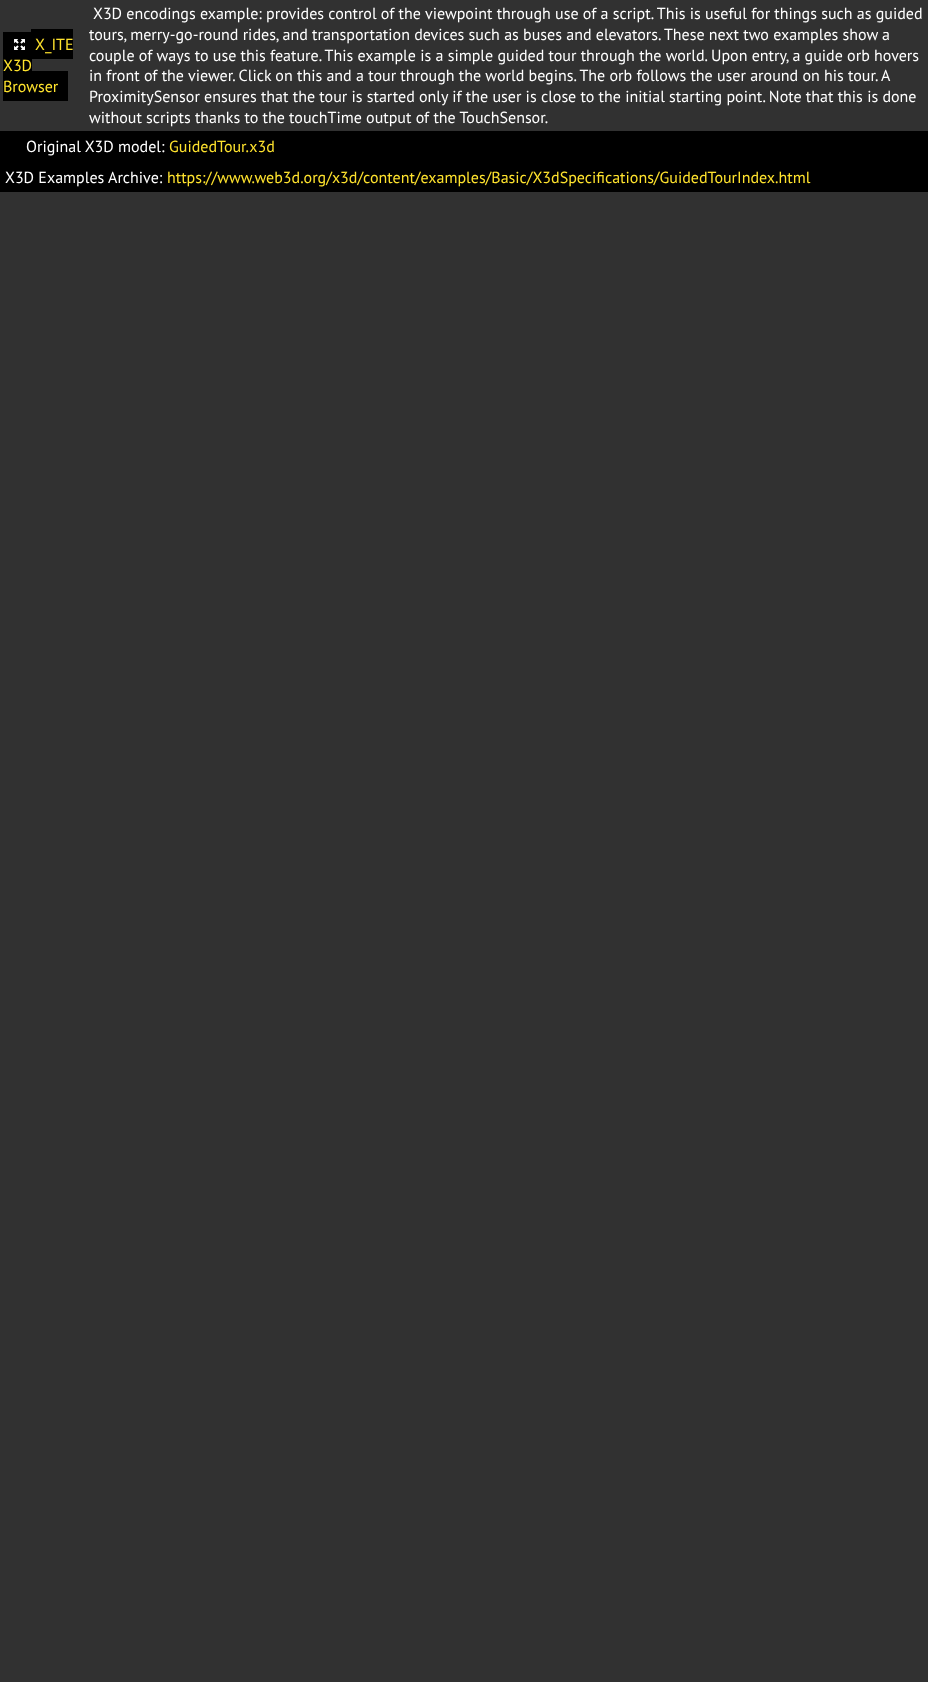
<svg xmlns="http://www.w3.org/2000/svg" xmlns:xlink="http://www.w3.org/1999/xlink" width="928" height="1682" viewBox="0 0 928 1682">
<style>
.cls-1{font:16px PT Sans;fill:#ffe32d}
.cls-2{font:16px PT Sans;fill:#ffffff}
</style>
<rect width="100%" height="100%" fill="#313131"/>
<rect fill="#000000" x="3" y="32" width="28" height="18"/>
<rect fill="#000000" x="31" y="29" width="42" height="30"/>
<rect fill="#000000" x="3" y="50" width="29" height="21"/>
<rect fill="#000000" x="3" y="71" width="65" height="30"/>
<image xlink:href="image0.png" x="14" y="39" width="11" height="11"/>
<rect fill="#000000" x="0" y="131" width="928" height="61"/>
<text class="cls-1" x="35" y="50">X_ITE</text>
<text class="cls-1"><tspan x="3" y="71">X3D</tspan><tspan x="3" y="92">Browser</tspan></text>
<text class="cls-2" x="93" y="19">X3D encodings example: provides control of the viewpoint through use of a script. This is useful for things such as guided</text>
<text class="cls-2"><tspan x="89" y="40">tours, merry-go-round rides, and transportation devices such as buses and elevators. These next two examples show a</tspan><tspan x="89" y="61">couple of ways to use this feature. This example is a simple guided tour through the world. Upon entry, a guide orb hovers</tspan><tspan x="89" y="81">in front of the viewer. Click on this and a tour through the world begins. The orb follows the user around on his tour. A</tspan><tspan x="89" y="102">ProximitySensor ensures that the tour is started only if the user is close to the initial starting point. Note that this is done</tspan><tspan x="89" y="123">without scripts thanks to the touchTime output of the TouchSensor.</tspan></text>
<text class="cls-2" x="26" y="152">Original X3D model:</text>
<text class="cls-1" x="169" y="152">GuidedTour.x3d</text>
<text class="cls-2" x="5" y="183">X3D Examples Archive:</text>
<text class="cls-1" x="167" y="183">https://www.web3d.org/x3d/content/examples/Basic/X3dSpecifications/GuidedTourIndex.html</text>
</svg>
